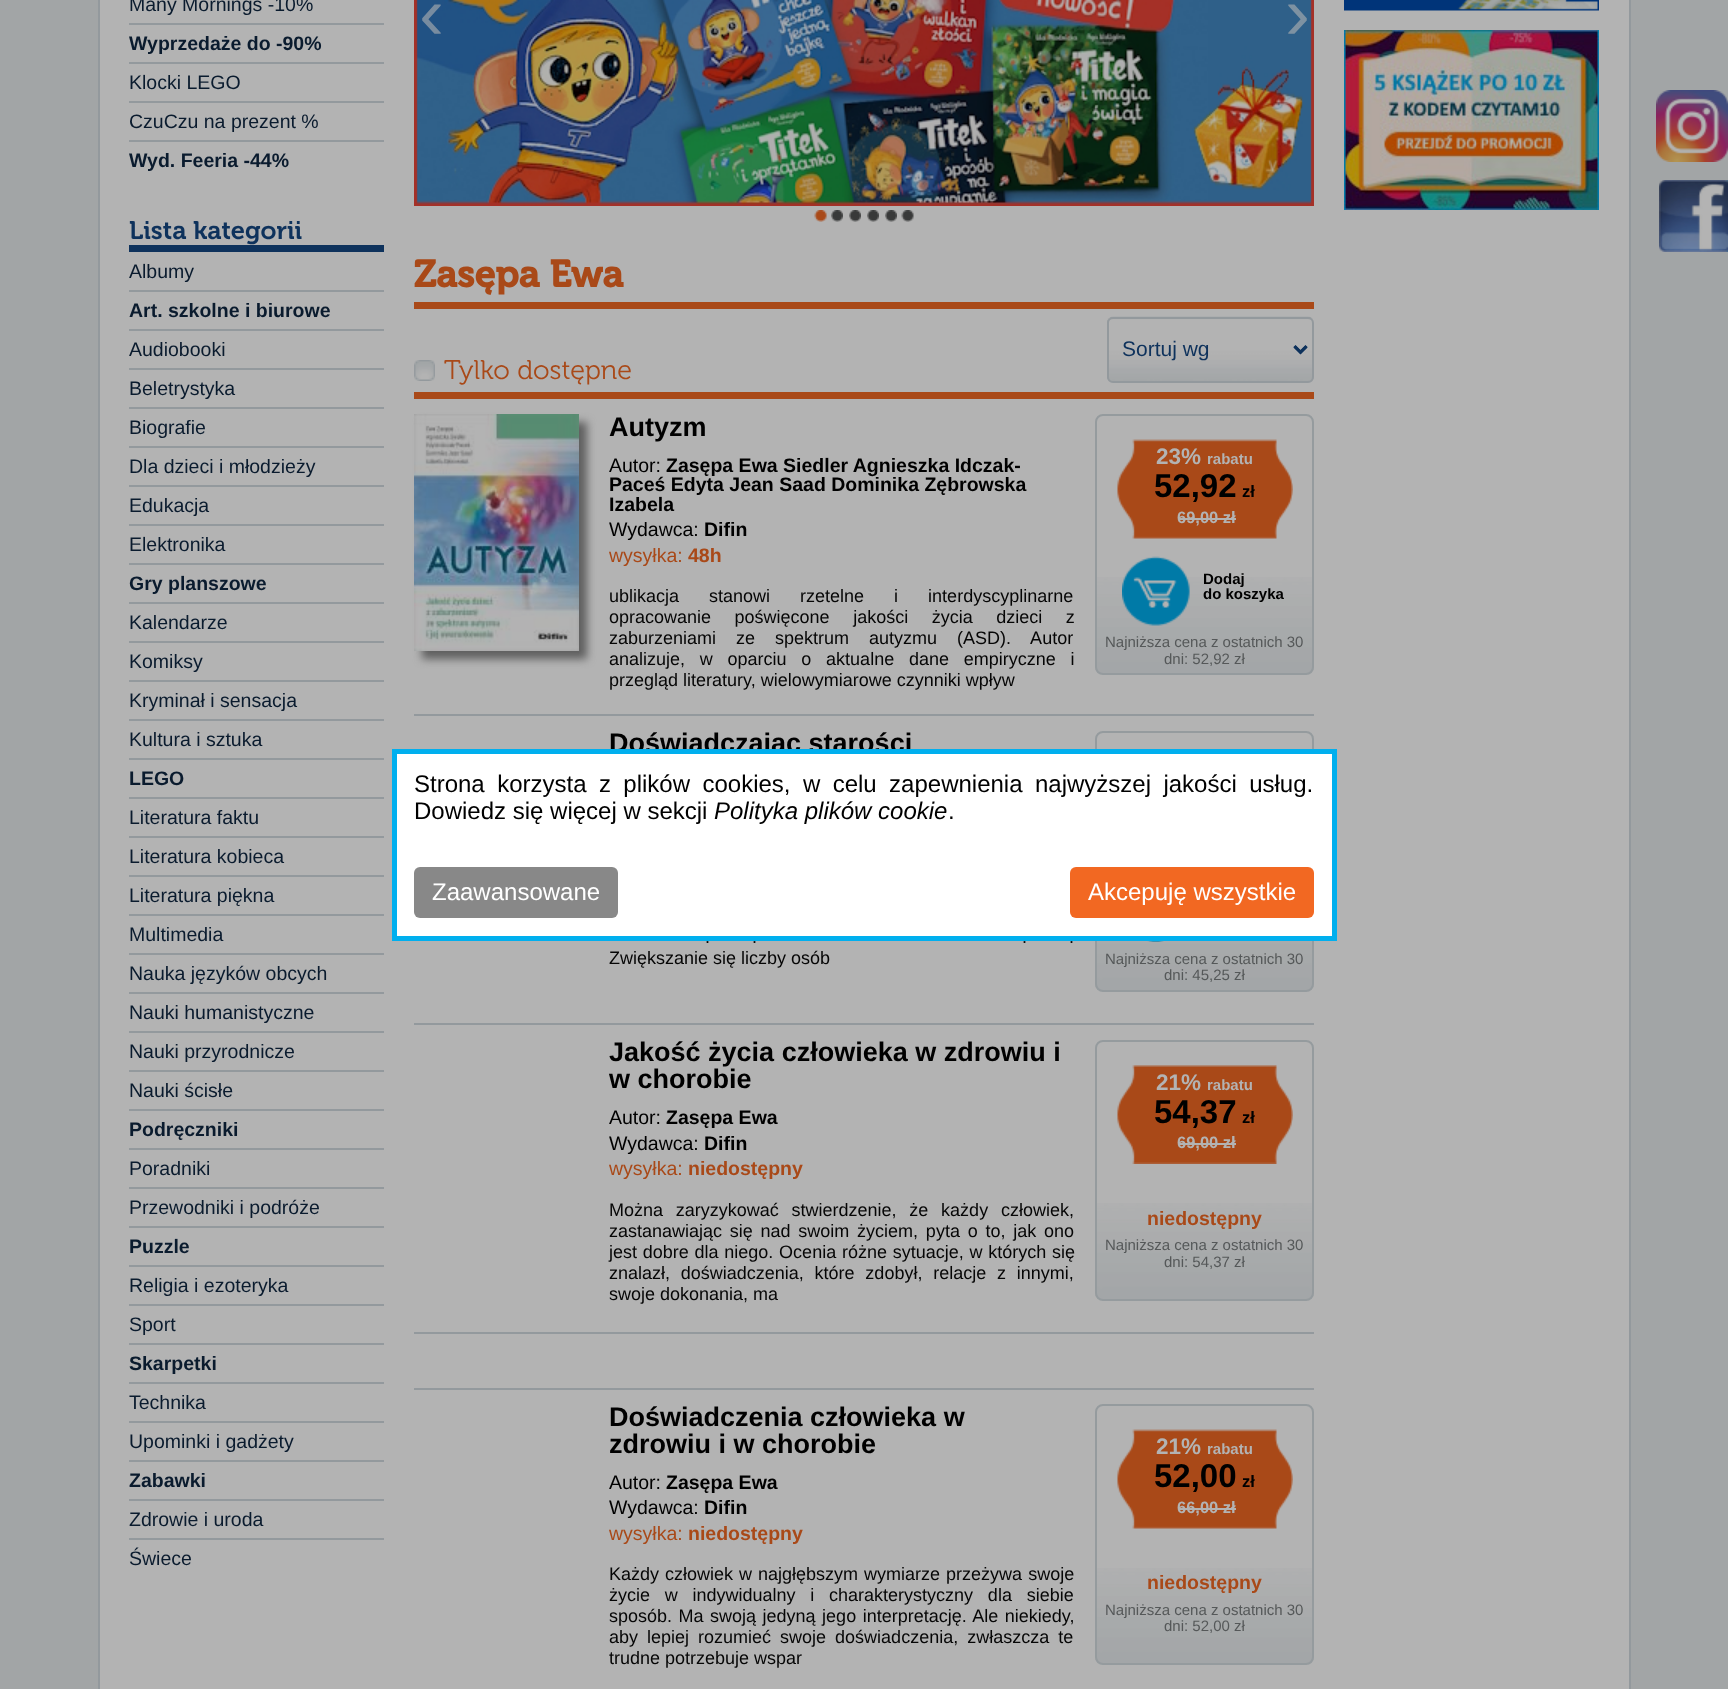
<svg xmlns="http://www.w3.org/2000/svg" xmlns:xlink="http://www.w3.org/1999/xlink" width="1728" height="1689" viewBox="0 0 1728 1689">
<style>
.cls-1{font:19.5px Liberation Sans;fill:#0a1b2e}
.cls-2{font:bold 19.5px Liberation Sans;fill:#0a1b2e}
.cls-3{font:25.5px 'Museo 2';fill:#0e325c}
.cls-4{font:75px Liberation Sans;fill:#788ca0}
.cls-5{font:75px Liberation Sans;fill:#7e92a2}
.cls-6{font:bold 37.5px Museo;fill:#a94918}
.cls-7{font:21px Liberation Sans;fill:#0e325c}
.cls-8{font:27px Museo;fill:#a94918}
.cls-9{font:bold 27px Liberation Sans;fill:#000000}
.cls-10{font:19.5px Liberation Sans;fill:#000000}
.cls-11{font:bold 19.5px Liberation Sans;fill:#000000}
.cls-12{font:19.5px Liberation Sans;fill:#a94918}
.cls-13{font:bold 19.5px Liberation Sans;fill:#a94918}
.cls-14{font:18px Liberation Sans;fill:#060606}
.cls-15{font:bold 22.5px Liberation Sans;fill:#b3b3b3}
.cls-16{font:bold 15px Liberation Sans;fill:#b3b3b3}
.cls-17{font:bold 33px Liberation Sans;fill:#000000}
.cls-18{font:bold 16.5px Liberation Sans;fill:#000000}
.cls-19{font:bold 16.5px Liberation Sans;fill:#b3b3b3}
.cls-20{font:bold 15px Liberation Sans;fill:#000000}
.cls-21{font:15px Liberation Sans;fill:#555859}
.cls-22{font:24px Liberation Sans;fill:#000000}
.cls-23{font:italic 24px Liberation Sans;fill:#000000}
.cls-24{font:24px Liberation Sans;fill:#ffffff}
</style>
<rect width="100%" height="100%" fill="#a2a5a6"/>
<rect fill="#b3b3b3" stroke="#93999d" stroke-width="2" x="99" y="-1" width="1531" height="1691"/>
<rect fill="#93999d" x="129" y="23" width="255" height="2"/>
<rect fill="#93999d" x="129" y="62" width="255" height="2"/>
<rect fill="#93999d" x="129" y="101" width="255" height="2"/>
<rect fill="#93999d" x="129" y="140" width="255" height="2"/>
<rect fill="#0e325c" x="129" y="245" width="255" height="7"/>
<rect fill="#93999d" x="129" y="290" width="255" height="2"/>
<rect fill="#93999d" x="129" y="329" width="255" height="2"/>
<rect fill="#93999d" x="129" y="368" width="255" height="2"/>
<rect fill="#93999d" x="129" y="407" width="255" height="2"/>
<rect fill="#93999d" x="129" y="446" width="255" height="2"/>
<rect fill="#93999d" x="129" y="485" width="255" height="2"/>
<rect fill="#93999d" x="129" y="524" width="255" height="2"/>
<rect fill="#93999d" x="129" y="563" width="255" height="2"/>
<rect fill="#93999d" x="129" y="602" width="255" height="2"/>
<rect fill="#93999d" x="129" y="641" width="255" height="2"/>
<rect fill="#93999d" x="129" y="680" width="255" height="2"/>
<rect fill="#93999d" x="129" y="719" width="255" height="2"/>
<rect fill="#93999d" x="129" y="758" width="255" height="2"/>
<rect fill="#93999d" x="129" y="797" width="255" height="2"/>
<rect fill="#93999d" x="129" y="836" width="255" height="2"/>
<rect fill="#93999d" x="129" y="875" width="255" height="2"/>
<rect fill="#93999d" x="129" y="914" width="255" height="2"/>
<rect fill="#93999d" x="129" y="953" width="255" height="2"/>
<rect fill="#93999d" x="129" y="992" width="255" height="2"/>
<rect fill="#93999d" x="129" y="1031" width="255" height="2"/>
<rect fill="#93999d" x="129" y="1070" width="255" height="2"/>
<rect fill="#93999d" x="129" y="1109" width="255" height="2"/>
<rect fill="#93999d" x="129" y="1148" width="255" height="2"/>
<rect fill="#93999d" x="129" y="1187" width="255" height="2"/>
<rect fill="#93999d" x="129" y="1226" width="255" height="2"/>
<rect fill="#93999d" x="129" y="1265" width="255" height="2"/>
<rect fill="#93999d" x="129" y="1304" width="255" height="2"/>
<rect fill="#93999d" x="129" y="1343" width="255" height="2"/>
<rect fill="#93999d" x="129" y="1382" width="255" height="2"/>
<rect fill="#93999d" x="129" y="1421" width="255" height="2"/>
<rect fill="#93999d" x="129" y="1460" width="255" height="2"/>
<rect fill="#93999d" x="129" y="1499" width="255" height="2"/>
<rect fill="#93999d" x="129" y="1538" width="255" height="2"/>
<image xlink:href="image0.png" x="414" y="0" width="900" height="206"/>
<image xlink:href="image1.png" x="814" y="210" width="13" height="12"/>
<image xlink:href="image2.png" x="831" y="210" width="12" height="12"/>
<image xlink:href="image2.png" x="849" y="210" width="12" height="12"/>
<image xlink:href="image2.png" x="867" y="210" width="12" height="12"/>
<image xlink:href="image2.png" x="885" y="210" width="12" height="12"/>
<image xlink:href="image3.png" x="901" y="210" width="13" height="12"/>
<rect fill="#a94918" x="414" y="302" width="900" height="7"/>
<image xlink:href="image4.png" x="1107" y="316" width="207" height="67"/>
<rect fill="none" stroke="#93999d" stroke-width="2" x="1108" y="318" width="205" height="64" rx="5"/>
<path fill="none" stroke="#0e325c" stroke-width="3" d="M1294.5 346L1300.5 352L1306.5 346"/>
<rect fill="#a94918" x="414" y="392" width="900" height="7"/>
<image xlink:href="image5.png" x="414" y="360" width="21" height="21"/>
<rect fill="#93999d" x="414" y="714" width="900" height="2"/>
<rect fill="#5f5f5f" filter="blur(4px)" x="422" y="422" width="165" height="237"/>
<image xlink:href="image6.png" x="414" y="414" width="165" height="237"/>
<image xlink:href="image7.png" x="1095" y="577" width="219" height="97"/>
<rect fill="none" stroke="#959b9e" stroke-width="2" x="1096" y="415" width="217" height="259" rx="7"/>
<image xlink:href="image8.png" x="1117" y="439" width="176" height="100"/>
<rect fill="#b3b3b3" x="1178" y="518" width="58" height="2"/>
<image xlink:href="image9.png" x="1122" y="556" width="68" height="70"/>
<rect fill="#93999d" x="414" y="1023" width="900" height="2"/>
<image xlink:href="image10.png" x="1095" y="941" width="219" height="49"/>
<rect fill="none" stroke="#959b9e" stroke-width="2" x="1096" y="732" width="217" height="259" rx="7"/>
<image xlink:href="image11.png" x="1147" y="941" width="17" height="1"/>
<rect fill="#93999d" x="414" y="1332" width="900" height="2"/>
<image xlink:href="image12.png" x="1095" y="1203" width="219" height="96"/>
<rect fill="none" stroke="#959b9e" stroke-width="2" x="1096" y="1041" width="217" height="259" rx="7"/>
<image xlink:href="image13.png" x="1117" y="1065" width="176" height="99"/>
<rect fill="#b3b3b3" x="1178" y="1143" width="58" height="2"/>
<rect fill="#93999d" x="414" y="1388" width="900" height="2"/>
<image xlink:href="image14.png" x="1095" y="1568" width="219" height="96"/>
<rect fill="none" stroke="#959b9e" stroke-width="2" x="1096" y="1405" width="217" height="259" rx="7"/>
<image xlink:href="image8.png" x="1117" y="1429" width="176" height="100"/>
<rect fill="#b3b3b3" x="1178" y="1508" width="58" height="2"/>
<image xlink:href="image15.png" x="1344" y="0" width="255" height="11"/>
<image xlink:href="image16.png" x="1344" y="30" width="255" height="180"/>
<image xlink:href="image17.png" x="1656" y="90" width="72" height="72"/>
<path fill="#014e91" d="M1671 180H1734V252H1671C1664.5 252 1659 246.5 1659 240V192C1659 185.5 1664.5 180 1671 180Z"/>
<image xlink:href="image18.png" x="1659" y="180" width="69" height="72"/>
<text class="cls-1" x="129" y="11">Many Mornings -10%</text>
<text class="cls-2" x="129" y="50">Wyprzedaże do -90%</text>
<text class="cls-1" x="129" y="89">Klocki LEGO</text>
<text class="cls-1" x="129" y="128">CzuCzu na prezent %</text>
<text class="cls-2" x="129" y="167">Wyd. Feeria -44%</text>
<text class="cls-3" x="129" y="239">Lista kategorii</text>
<text class="cls-1" x="129" y="278">Albumy</text>
<text class="cls-2" x="129" y="317">Art. szkolne i biurowe</text>
<text class="cls-1" x="129" y="356">Audiobooki</text>
<text class="cls-1" x="129" y="395">Beletrystyka</text>
<text class="cls-1" x="129" y="434">Biografie</text>
<text class="cls-1" x="129" y="473">Dla dzieci i młodzieży</text>
<text class="cls-1" x="129" y="512">Edukacja</text>
<text class="cls-1" x="129" y="551">Elektronika</text>
<text class="cls-2" x="129" y="590">Gry planszowe</text>
<text class="cls-1" x="129" y="629">Kalendarze</text>
<text class="cls-1" x="129" y="668">Komiksy</text>
<text class="cls-1" x="129" y="707">Kryminał i sensacja</text>
<text class="cls-1" x="129" y="746">Kultura i sztuka</text>
<text class="cls-2" x="129" y="785">LEGO</text>
<text class="cls-1" x="129" y="824">Literatura faktu</text>
<text class="cls-1" x="129" y="863">Literatura kobieca</text>
<text class="cls-1" x="129" y="902">Literatura piękna</text>
<text class="cls-1" x="129" y="941">Multimedia</text>
<text class="cls-1" x="129" y="980">Nauka języków obcych</text>
<text class="cls-1" x="129" y="1019">Nauki humanistyczne</text>
<text class="cls-1" x="129" y="1058">Nauki przyrodnicze</text>
<text class="cls-1" x="129" y="1097">Nauki ścisłe</text>
<text class="cls-2" x="129" y="1136">Podręczniki</text>
<text class="cls-1" x="129" y="1175">Poradniki</text>
<text class="cls-1" x="129" y="1214">Przewodniki i podróże</text>
<text class="cls-2" x="129" y="1253">Puzzle</text>
<text class="cls-1" x="129" y="1292">Religia i ezoteryka</text>
<text class="cls-1" x="129" y="1331">Sport</text>
<text class="cls-2" x="129" y="1370">Skarpetki</text>
<text class="cls-1" x="129" y="1409">Technika</text>
<text class="cls-1" x="129" y="1448">Upominki i gadżety</text>
<text class="cls-2" x="129" y="1487">Zabawki</text>
<text class="cls-1" x="129" y="1526">Zdrowie i uroda</text>
<text class="cls-1" x="129" y="1565">Świece</text>
<text class="cls-4" x="419" y="39">‹</text>
<text class="cls-5" x="1285" y="39">›</text>
<text class="cls-6" x="414" y="287">Zasępa Ewa</text>
<text class="cls-7" x="1122" y="356">Sortuj wg</text>
<text class="cls-8" x="444" y="379">Tylko dostępne</text>
<text class="cls-9" x="609" y="436">Autyzm</text>
<text class="cls-10" x="609" y="472">Autor:</text>
<text class="cls-11" x="666" y="472">Zasępa Ewa Siedler Agnieszka Idczak-</text>
<text class="cls-11"><tspan x="609" y="491">Paceś Edyta Jean Saad Dominika Zębrowska</tspan><tspan x="609" y="511">Izabela</tspan></text>
<text class="cls-10" x="609" y="536">Wydawca:</text>
<text class="cls-11" x="704" y="536">Difin</text>
<text class="cls-12" x="609" y="562">wysyłka:</text>
<text class="cls-13" x="688" y="562">48h</text>
<text class="cls-14"><tspan x="609" y="602" word-spacing="25">ublikacja stanowi rzetelne i interdyscyplinarne</tspan><tspan x="609" y="623" word-spacing="18.5">opracowanie poświęcone jakości życia dzieci z</tspan><tspan x="609" y="644" word-spacing="15">zaburzeniami ze spektrum autyzmu (ASD). Autor</tspan><tspan x="609" y="665" word-spacing="9.75">analizuje, w oparciu o aktualne dane empiryczne i</tspan><tspan x="609" y="686">przegląd literatury, wielowymiarowe czynniki wpływ</tspan></text>
<text class="cls-15" x="1156" y="464">23%</text>
<text class="cls-16" x="1207" y="464">rabatu</text>
<text class="cls-17" x="1154" y="497">52,92</text>
<text class="cls-18" x="1242" y="497">zł</text>
<text class="cls-19" x="1177" y="523">69,00 zł</text>
<text class="cls-20"><tspan x="1203" y="584">Dodaj</tspan><tspan x="1203" y="599">do koszyka</tspan></text>
<text class="cls-21" x="1105" y="647">Najniższa cena z ostatnich 30</text>
<text class="cls-21" x="1164" y="664">dni: 52,92 zł</text>
<text class="cls-9" x="609" y="752">Doświadczając starości</text>
<text class="cls-14" x="705" y="943" word-spacing="1">.</text>
<text class="cls-14" x="752" y="943" word-spacing="1">.</text>
<text class="cls-14" x="1022" y="943" word-spacing="1">.</text>
<text class="cls-14" x="1069" y="943" word-spacing="1">.</text>
<text class="cls-14" x="609" y="964">Zwiększanie się liczby osób</text>
<text class="cls-21" x="1105" y="964">Najniższa cena z ostatnich 30</text>
<text class="cls-21" x="1164" y="980">dni: 45,25 zł</text>
<text class="cls-9"><tspan x="609" y="1061">Jakość życia człowieka w zdrowiu i</tspan><tspan x="609" y="1088">w chorobie</tspan></text>
<text class="cls-10" x="609" y="1124">Autor:</text>
<text class="cls-11" x="666" y="1124">Zasępa Ewa</text>
<text class="cls-10" x="609" y="1150">Wydawca:</text>
<text class="cls-11" x="704" y="1150">Difin</text>
<text class="cls-12" x="609" y="1175">wysyłka:</text>
<text class="cls-13" x="688" y="1175">niedostępny</text>
<text class="cls-14"><tspan x="609" y="1216" word-spacing="7.75">Można zaryzykować stwierdzenie, że każdy człowiek,</tspan><tspan x="609" y="1237" word-spacing="2.75">zastanawiając się nad swoim życiem, pyta o to, jak ono</tspan><tspan x="609" y="1258" word-spacing="0.75">jest dobre dla niego. Ocenia różne sytuacje, w których się</tspan><tspan x="609" y="1279" word-spacing="5.75">znalazł, doświadczenia, które zdobył, relacje z innymi,</tspan><tspan x="609" y="1300">swoje dokonania, ma</tspan></text>
<text class="cls-15" x="1156" y="1090">21%</text>
<text class="cls-16" x="1207" y="1090">rabatu</text>
<text class="cls-17" x="1154" y="1123">54,37</text>
<text class="cls-18" x="1242" y="1123">zł</text>
<text class="cls-19" x="1177" y="1148">69,00 zł</text>
<text class="cls-13" x="1147" y="1225">niedostępny</text>
<text class="cls-21" x="1105" y="1250">Najniższa cena z ostatnich 30</text>
<text class="cls-21" x="1164" y="1267">dni: 54,37 zł</text>
<text class="cls-9"><tspan x="609" y="1426">Doświadczenia człowieka w</tspan><tspan x="609" y="1453">zdrowiu i w chorobie</tspan></text>
<text class="cls-10" x="609" y="1489">Autor:</text>
<text class="cls-11" x="666" y="1489">Zasępa Ewa</text>
<text class="cls-10" x="609" y="1514">Wydawca:</text>
<text class="cls-11" x="704" y="1514">Difin</text>
<text class="cls-12" x="609" y="1540">wysyłka:</text>
<text class="cls-13" x="688" y="1540">niedostępny</text>
<text class="cls-14"><tspan x="609" y="1580" word-spacing="1">Każdy człowiek w najgłębszym wymiarze przeżywa swoje</tspan><tspan x="609" y="1601" word-spacing="9.75">życie w indywidualny i charakterystyczny dla siebie</tspan><tspan x="609" y="1622" word-spacing="1.5">sposób. Ma swoją jedyną jego interpretację. Ale niekiedy,</tspan><tspan x="609" y="1643" word-spacing="4">aby lepiej rozumieć swoje doświadczenia, zwłaszcza te</tspan><tspan x="609" y="1664">trudne potrzebuje wspar</tspan></text>
<text class="cls-15" x="1156" y="1454">21%</text>
<text class="cls-16" x="1207" y="1454">rabatu</text>
<text class="cls-17" x="1154" y="1487">52,00</text>
<text class="cls-18" x="1242" y="1487">zł</text>
<text class="cls-19" x="1177" y="1513">66,00 zł</text>
<text class="cls-13" x="1147" y="1589">niedostępny</text>
<text class="cls-21" x="1105" y="1615">Najniższa cena z ostatnich 30</text>
<text class="cls-21" x="1164" y="1631">dni: 52,00 zł</text>
<rect fill="#ffffff" stroke="#00afee" stroke-width="5" x="394.5" y="751.5" width="940" height="187"/>
<text class="cls-22"><tspan x="414" y="792" word-spacing="5.75">Strona korzysta z plików cookies, w celu zapewnienia najwyższej jakości usług.</tspan><tspan x="414" y="819">Dowiedz się więcej w sekcji</tspan></text>
<text class="cls-23" x="714" y="819">Polityka plików cookie</text>
<text class="cls-22" x="948" y="819">.</text>
<rect fill="#888888" x="414" y="867" width="204" height="51" rx="6"/>
<text class="cls-24" x="432" y="900">Zaawansowane</text>
<rect fill="#f26822" x="1070" y="867" width="244" height="51" rx="6"/>
<text class="cls-24" x="1088" y="900">Akcepuję wszystkie</text>
</svg>
